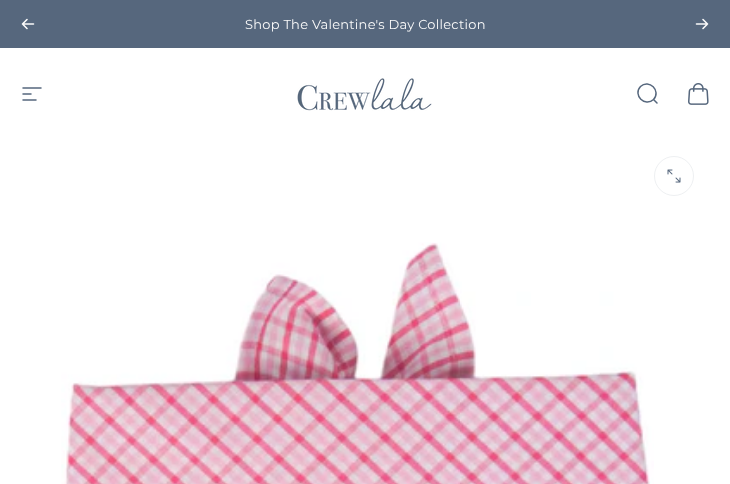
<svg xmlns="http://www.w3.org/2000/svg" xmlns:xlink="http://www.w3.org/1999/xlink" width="730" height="484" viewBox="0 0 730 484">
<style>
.cls-1{font:13px Montserrat;letter-spacing:0.25px;fill:#fafafa}
</style>
<rect width="100%" height="100%" fill="#ffffff"/>
<rect fill="#56677d" x="0" y="0" width="730" height="48"/>
<path fill="none" stroke="#fafafa" stroke-width="1.6" stroke-linecap="round" stroke-linejoin="round" d="M27 19.5L22.5 24M22.5 24L27 28.5M22.5 24H33.5"/>
<path fill="none" stroke="#fafafa" stroke-width="1.6" stroke-linecap="round" stroke-linejoin="round" d="M696.5 24H707.5M707.5 24L703 19.5M707.5 24L703 28.5"/>
<path fill="none" stroke="#56677d" stroke-width="1.5" stroke-linecap="round" d="M23 88H41M23 94H31M23 100H36"/>
<image xlink:href="image0.png" x="297" y="78" width="135" height="33"/>
<path fill="none" stroke="#56677d" stroke-width="1.5" stroke-linecap="round" d="M657 103L653.5 99.5M653.5 99.5C661.5 91 649 78.5 640.5 86.5C632.5 95 645 107.5 653.5 99.5Z"/>
<image xlink:href="image1.png" x="688" y="83" width="21" height="22"/>
<circle fill="none" stroke="#eef0f2" cx="674" cy="176" r="19.5"/>
<image xlink:href="image2.png" x="667" y="169" width="14" height="14"/>
<image xlink:href="image3.png" x="61" y="242" width="593" height="242"/>
<text class="cls-1" x="245" y="29">Shop The Valentine's Day Collection</text>
</svg>
